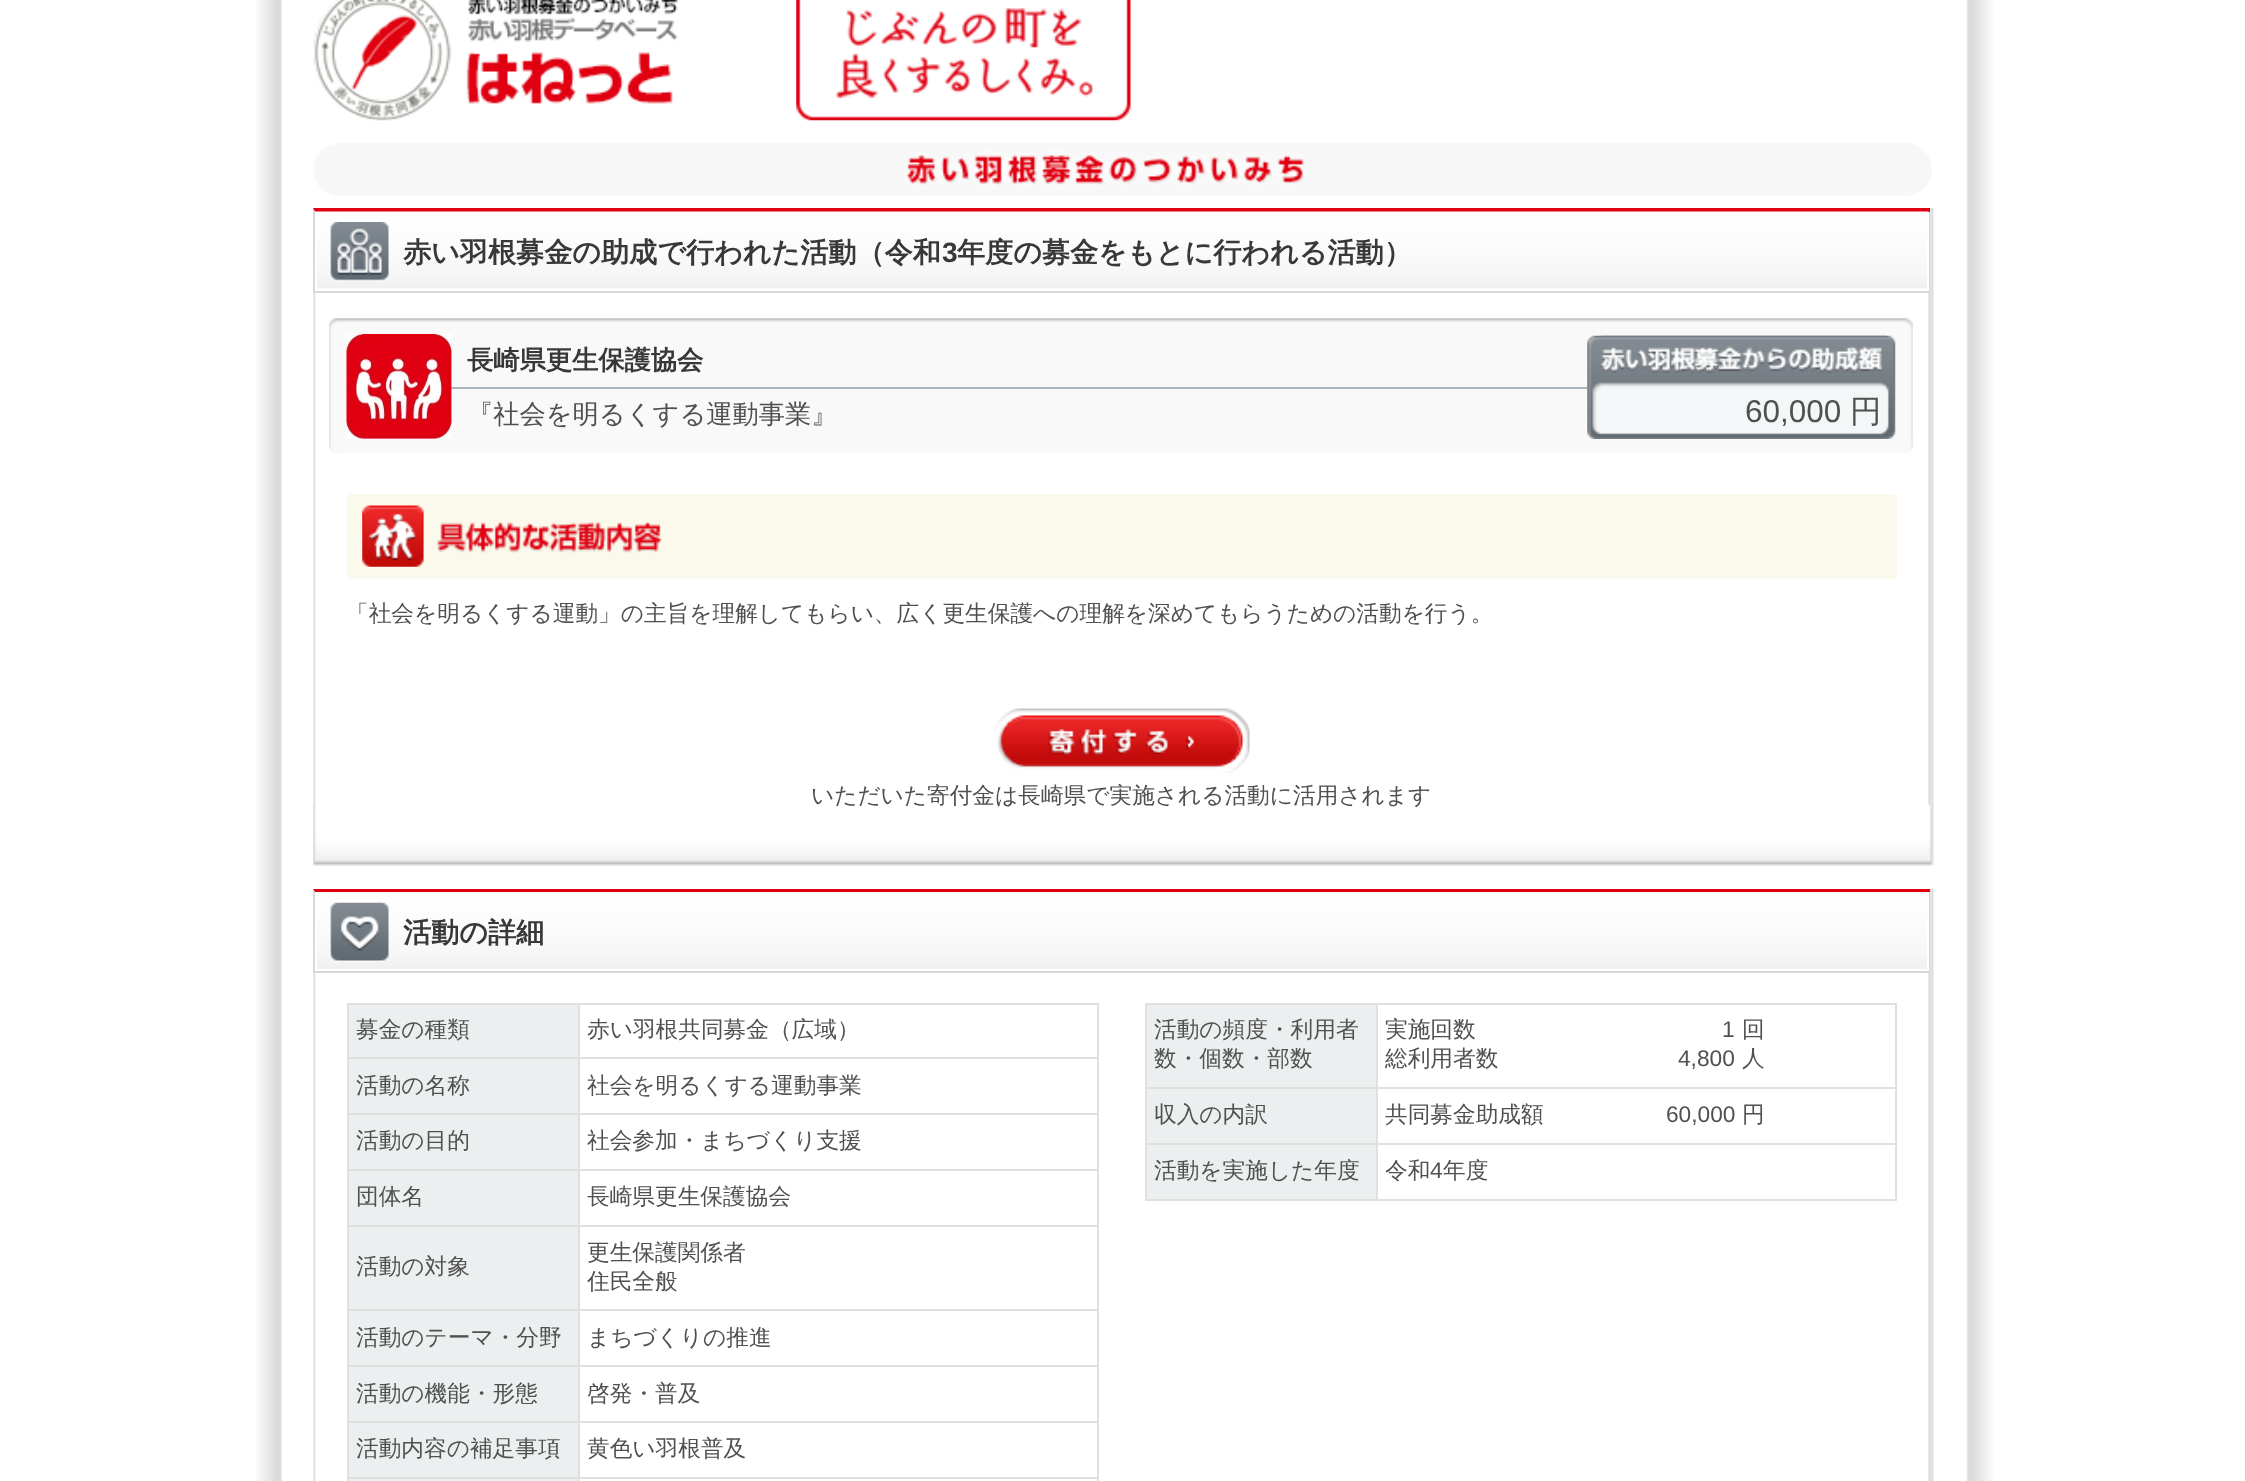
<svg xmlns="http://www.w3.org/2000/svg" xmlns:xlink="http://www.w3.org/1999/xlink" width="2245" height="1481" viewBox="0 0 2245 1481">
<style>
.cls-1{font:bold 28.1px WenQuanYi Zen Hei;fill:#383838}
.cls-2{font:bold 28.1px Liberation Sans;fill:#383838}
.cls-3{font:bold 26.25px WenQuanYi Zen Hei;fill:#383838}
.cls-4{font:500 26.25px WenQuanYi Zen Hei;fill:#505050}
.cls-5{font:31.5px Liberation Sans;fill:#505050}
.cls-6{font:500 31.5px WenQuanYi Zen Hei;fill:#505050}
.cls-7{font:500 22.68px WenQuanYi Zen Hei;fill:#505050}
.cls-8{font:22.68px Liberation Sans;fill:#505050}
</style>
<rect width="100%" height="100%" fill="#ffffff"/>
<image xlink:href="image0.png" x="256" y="0" width="1737" height="1481"/>
<image xlink:href="image1.png" x="313" y="0" width="365" height="121"/>
<image xlink:href="image2.png" x="796" y="0" width="335" height="121"/>
<image xlink:href="image3.png" x="313" y="143" width="1619" height="53"/>
<image xlink:href="image4.png" x="313" y="208" width="1621" height="658"/>
<image xlink:href="image5.png" x="313" y="804" width="1621" height="62"/>
<path fill="#e00012" d="M313 208H1930V212H315Z"/>
<rect fill="#d8d8d8" x="313" y="291" width="1617" height="2"/>
<path fill="#d8d8d8" d="M313 292V208L315 212V290Z"/>
<image xlink:href="image6.png" x="315" y="211" width="1614" height="78"/>
<rect fill="none" stroke="#ffffff" stroke-width="2" x="316" y="213" width="1612" height="77"/>
<image xlink:href="image7.png" x="329" y="222" width="60" height="60"/>
<image xlink:href="image8.png" x="329" y="330" width="1584" height="123"/>
<image xlink:href="image9.png" x="329" y="318" width="1584" height="119"/>
<rect fill="#acb5bb" x="451" y="387" width="1136" height="2"/>
<image xlink:href="image10.png" x="346" y="334" width="106" height="105"/>
<image xlink:href="image11.png" x="1587" y="335" width="300" height="104"/>
<image xlink:href="image12.png" x="1601" y="335" width="295" height="104"/>
<image xlink:href="image13.png" x="1601" y="346" width="282" height="27"/>
<rect fill="#faf9eb" x="347" y="494" width="1550" height="85" rx="5"/>
<image xlink:href="image14.png" x="362" y="505" width="300" height="62"/>
<image xlink:href="image15.png" x="994" y="708" width="256" height="65"/>
<image xlink:href="image16.png" x="313" y="888" width="1621" height="593"/>
<path fill="#e00012" d="M313 889H1930V892H315Z"/>
<rect fill="#d8d8d8" x="313" y="971" width="1617" height="2"/>
<path fill="#d8d8d8" d="M313 973V889L315 892V971Z"/>
<image xlink:href="image17.png" x="315" y="892" width="1614" height="77"/>
<rect fill="none" stroke="#ffffff" stroke-width="2" x="316" y="894" width="1612" height="76"/>
<image xlink:href="image18.png" x="329" y="902" width="60" height="60"/>
<rect fill="#e0e0e0" x="347" y="1003" width="752" height="2"/>
<rect fill="#e0e0e0" x="1097" y="1003" width="2" height="478"/>
<rect fill="#eceff0" x="347" y="1479" width="231" height="2"/>
<rect fill="#e0e0e0" x="347" y="1003" width="2" height="478"/>
<rect fill="#eceff0" x="349" y="1005" width="229" height="52"/>
<rect fill="#e0e0e0" x="578" y="1477" width="2" height="4"/>
<rect fill="#e0e0e0" x="578" y="1477" width="521" height="2"/>
<rect fill="#e0e0e0" x="578" y="1421" width="2" height="58"/>
<rect fill="#e0e0e0" x="578" y="1421" width="521" height="2"/>
<rect fill="#e0e0e0" x="578" y="1365" width="2" height="58"/>
<rect fill="#e0e0e0" x="578" y="1365" width="521" height="2"/>
<rect fill="#e0e0e0" x="578" y="1309" width="2" height="58"/>
<rect fill="#e0e0e0" x="578" y="1309" width="521" height="2"/>
<rect fill="#e0e0e0" x="578" y="1225" width="2" height="86"/>
<rect fill="#e0e0e0" x="578" y="1225" width="521" height="2"/>
<rect fill="#e0e0e0" x="578" y="1169" width="2" height="58"/>
<rect fill="#e0e0e0" x="578" y="1169" width="521" height="2"/>
<rect fill="#e0e0e0" x="578" y="1113" width="2" height="58"/>
<rect fill="#e0e0e0" x="578" y="1113" width="521" height="2"/>
<rect fill="#e0e0e0" x="578" y="1057" width="2" height="58"/>
<rect fill="#e0e0e0" x="578" y="1057" width="521" height="2"/>
<rect fill="#e0e0e0" x="578" y="1003" width="2" height="56"/>
<rect fill="#e0e0e0" x="347" y="1057" width="232" height="2"/>
<rect fill="#eceff0" x="349" y="1059" width="229" height="54"/>
<rect fill="#e0e0e0" x="347" y="1113" width="232" height="2"/>
<rect fill="#eceff0" x="349" y="1115" width="229" height="54"/>
<rect fill="#e0e0e0" x="347" y="1169" width="232" height="2"/>
<rect fill="#eceff0" x="349" y="1171" width="229" height="54"/>
<rect fill="#e0e0e0" x="347" y="1225" width="232" height="2"/>
<rect fill="#eceff0" x="349" y="1227" width="229" height="82"/>
<rect fill="#e0e0e0" x="347" y="1309" width="232" height="2"/>
<rect fill="#eceff0" x="349" y="1311" width="229" height="54"/>
<rect fill="#e0e0e0" x="347" y="1365" width="232" height="2"/>
<rect fill="#eceff0" x="349" y="1367" width="229" height="54"/>
<rect fill="#e0e0e0" x="347" y="1421" width="232" height="2"/>
<rect fill="#eceff0" x="349" y="1423" width="229" height="54"/>
<rect fill="#e0e0e0" x="347" y="1477" width="232" height="2"/>
<rect fill="#e0e0e0" x="1145" y="1003" width="752" height="2"/>
<rect fill="#e0e0e0" x="1895" y="1003" width="2" height="198"/>
<rect fill="#e0e0e0" x="1145" y="1199" width="752" height="2"/>
<rect fill="#e0e0e0" x="1145" y="1003" width="2" height="198"/>
<rect fill="#eceff0" x="1147" y="1005" width="229" height="82"/>
<rect fill="#e0e0e0" x="1376" y="1143" width="2" height="58"/>
<rect fill="#e0e0e0" x="1376" y="1143" width="521" height="2"/>
<rect fill="#e0e0e0" x="1376" y="1087" width="2" height="58"/>
<rect fill="#e0e0e0" x="1376" y="1087" width="521" height="2"/>
<rect fill="#e0e0e0" x="1376" y="1003" width="2" height="86"/>
<rect fill="#e0e0e0" x="1145" y="1087" width="232" height="2"/>
<rect fill="#eceff0" x="1147" y="1089" width="229" height="54"/>
<rect fill="#e0e0e0" x="1145" y="1143" width="232" height="2"/>
<rect fill="#eceff0" x="1147" y="1145" width="229" height="54"/>
<text class="cls-1" x="403" y="262">赤い羽根募金の助成で行われた活動（令和</text>
<text class="cls-2" x="942" y="262">3</text>
<text class="cls-1" x="957" y="262">年度の募金をもとに行われる活動）</text>
<text class="cls-3" x="467" y="369">長崎県更生保護協会</text>
<text class="cls-4" x="467" y="423">『社会を明るくする運動事業』</text>
<text class="cls-5" x="1745" y="422">60,000</text>
<text class="cls-6" x="1850" y="422">円</text>
<text class="cls-7" x="346" y="621">「社会を明るくする運動」の主旨を理解してもらい、広く更生保護への理解を深めてもらうための活動を行う。</text>
<text class="cls-7" x="811" y="803">いただいた寄付金は長崎県で実施される活動に活用されます</text>
<text class="cls-1" x="403" y="942">活動の詳細</text>
<text class="cls-7" x="356" y="1037">募金の種類</text>
<text class="cls-7" x="587" y="1037">赤い羽根共同募金（広域）</text>
<text class="cls-7" x="356" y="1093">活動の名称</text>
<text class="cls-7" x="587" y="1093">社会を明るくする運動事業</text>
<text class="cls-7" x="356" y="1148">活動の目的</text>
<text class="cls-7" x="587" y="1148">社会参加・まちづくり支援</text>
<text class="cls-7" x="356" y="1204">団体名</text>
<text class="cls-7" x="587" y="1204">長崎県更生保護協会</text>
<text class="cls-7" x="356" y="1274">活動の対象</text>
<text class="cls-7"><tspan x="587" y="1260">更生保護関係者</tspan><tspan x="587" y="1289">住民全般</tspan></text>
<text class="cls-7" x="356" y="1345">活動のテーマ・分野</text>
<text class="cls-7" x="587" y="1345">まちづくりの推進</text>
<text class="cls-7" x="356" y="1401">活動の機能・形態</text>
<text class="cls-7" x="587" y="1401">啓発・普及</text>
<text class="cls-7" x="356" y="1456">活動内容の補足事項</text>
<text class="cls-7" x="587" y="1456">黄色い羽根普及</text>
<text class="cls-7"><tspan x="1154" y="1037">活動の頻度・利用者</tspan><tspan x="1154" y="1066">数・個数・部数</tspan></text>
<text class="cls-7" x="1385" y="1037">実施回数</text>
<text class="cls-8" x="1722" y="1037">1</text>
<text class="cls-7" x="1742" y="1037">回</text>
<text class="cls-7" x="1385" y="1066">総利用者数</text>
<text class="cls-8" x="1678" y="1066">4,800</text>
<text class="cls-7" x="1742" y="1066">人</text>
<text class="cls-7" x="1154" y="1122">収入の内訳</text>
<text class="cls-7" x="1385" y="1122">共同募金助成額</text>
<text class="cls-8" x="1666" y="1122">60,000</text>
<text class="cls-7" x="1742" y="1122">円</text>
<text class="cls-7" x="1154" y="1178">活動を実施した年度</text>
<text class="cls-7" x="1385" y="1178">令和</text>
<text class="cls-8" x="1430" y="1178">4</text>
<text class="cls-7" x="1443" y="1178">年度</text>
</svg>
